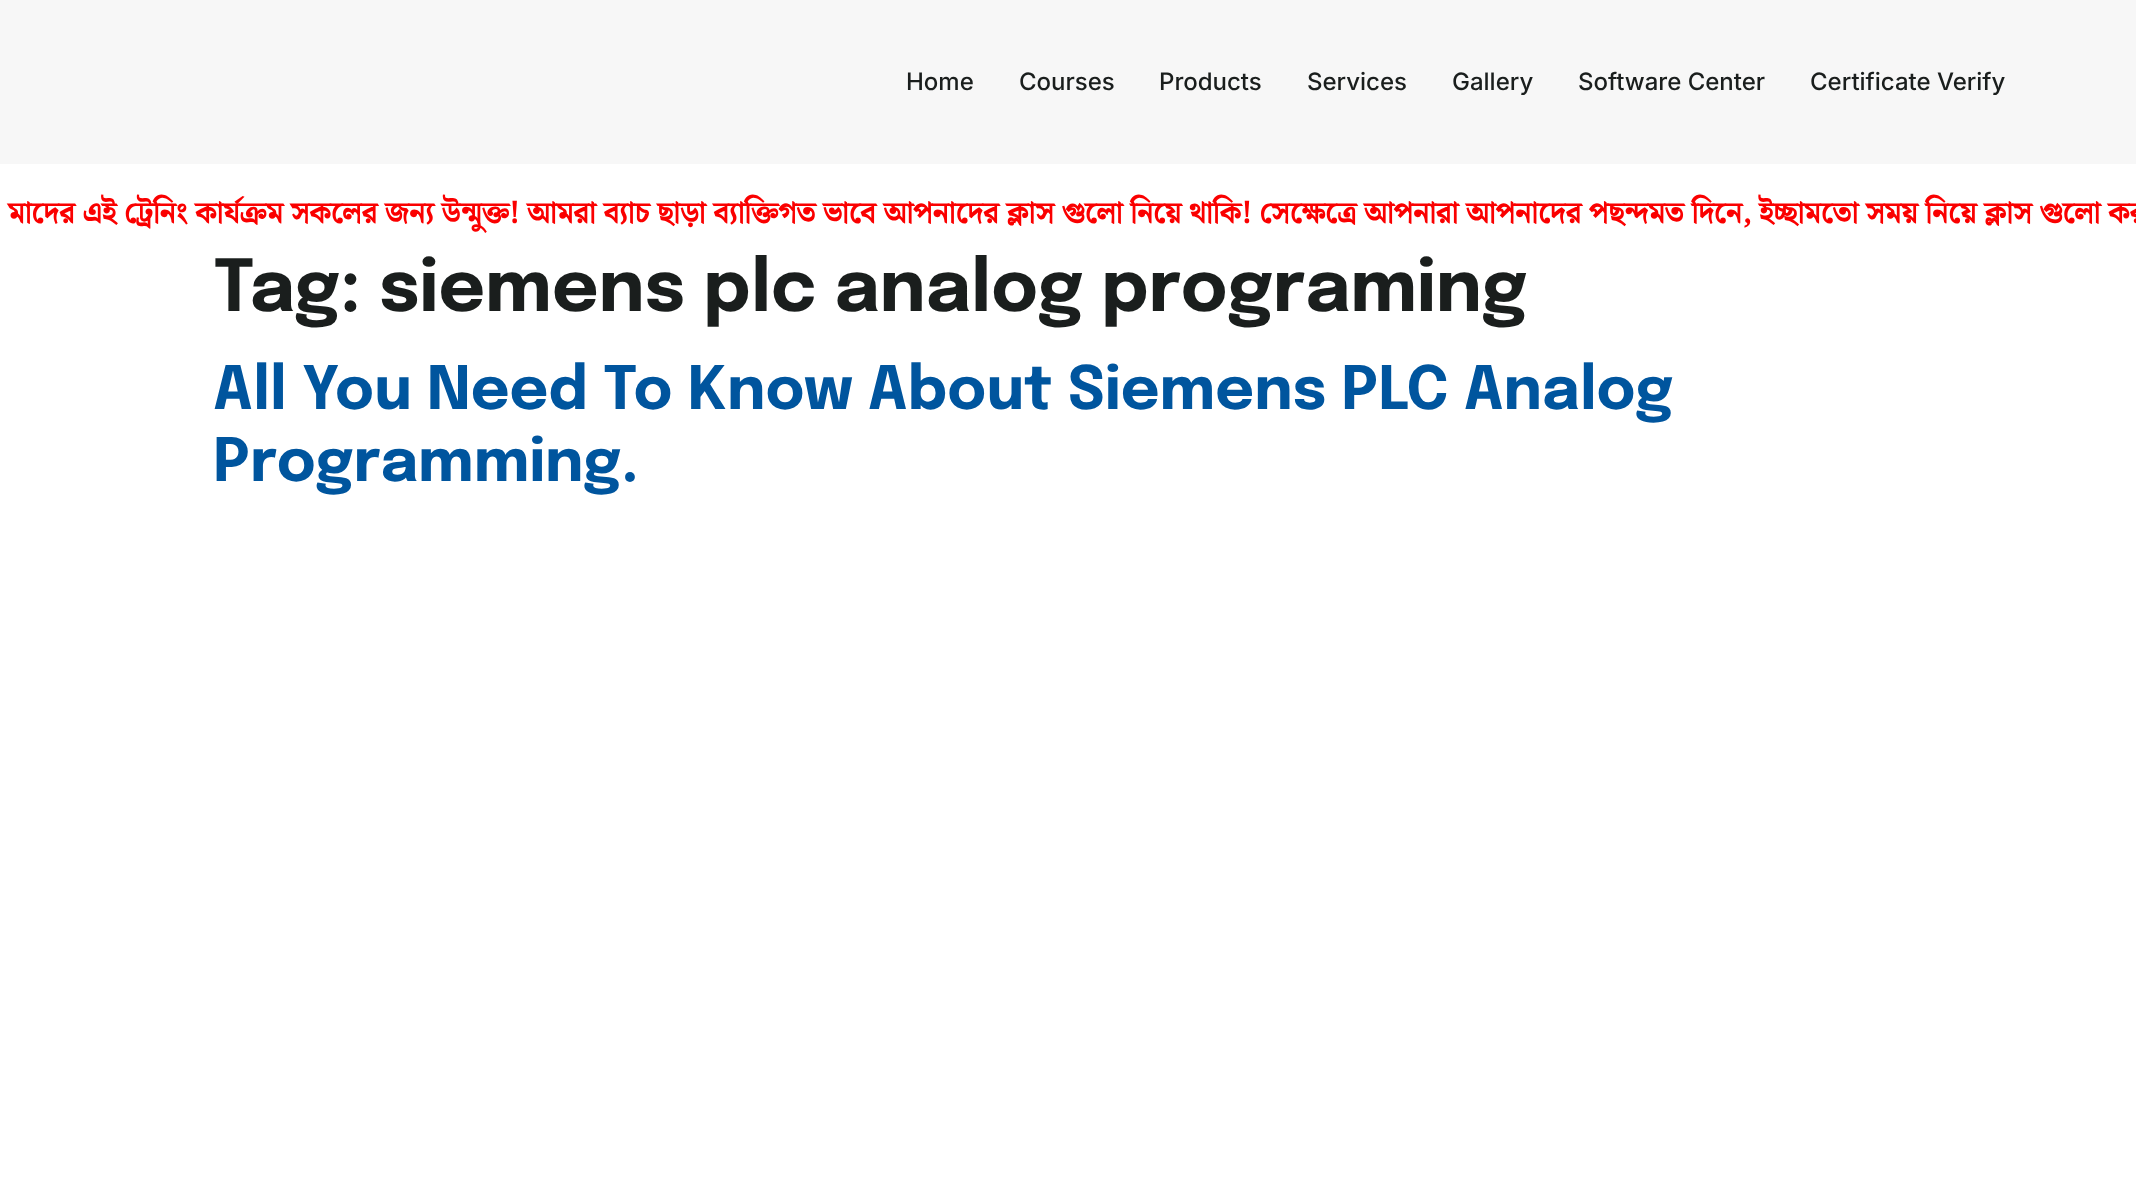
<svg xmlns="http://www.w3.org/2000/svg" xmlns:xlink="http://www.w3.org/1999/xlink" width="2136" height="1187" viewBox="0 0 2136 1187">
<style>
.cls-1{font:500 24px Inter;fill:#1a1e1d}
.cls-2{font:bold 30px Noto Serif Bengali;fill:#fa0000}
.cls-3{font:bold 71.7px Epilogue;fill:#1a1e1d}
.cls-4{font:bold 59.75px Epilogue;fill:#00559e}
</style>
<rect width="100%" height="100%" fill="#ffffff"/>
<rect fill="#f7f7f7" x="0" y="0" width="2136" height="164"/>
<text class="cls-1" x="906" y="90">Home</text>
<text class="cls-1" x="1019" y="90">Courses</text>
<text class="cls-1" x="1159" y="90">Products</text>
<text class="cls-1" x="1307" y="90">Services</text>
<text class="cls-1" x="1452" y="90">Gallery</text>
<text class="cls-1" x="1578" y="90">Software Center</text>
<text class="cls-1" x="1810" y="90">Certificate Verify</text>
<text class="cls-2" x="8" y="223">মাদের এই ট্রেনিং কার্যক্রম সকলের জন্য উন্মুক্ত! আমরা ব্যাচ ছাড়া ব্যাক্তিগত ভাবে আপনাদের ক্লাস গুলো নিয়ে থাকি! সেক্ষেত্রে আপনারা আপনাদের পছন্দমত দিনে, ইচ্ছামতো সময় নিয়ে ক্লাস গুলো কর</text>
<text class="cls-3" x="213" y="311">Tag: siemens plc analog programing</text>
<text class="cls-4"><tspan x="213" y="409">All You Need To Know About Siemens PLC Analog</tspan><tspan x="213" y="481">Programming.</tspan></text>
</svg>
